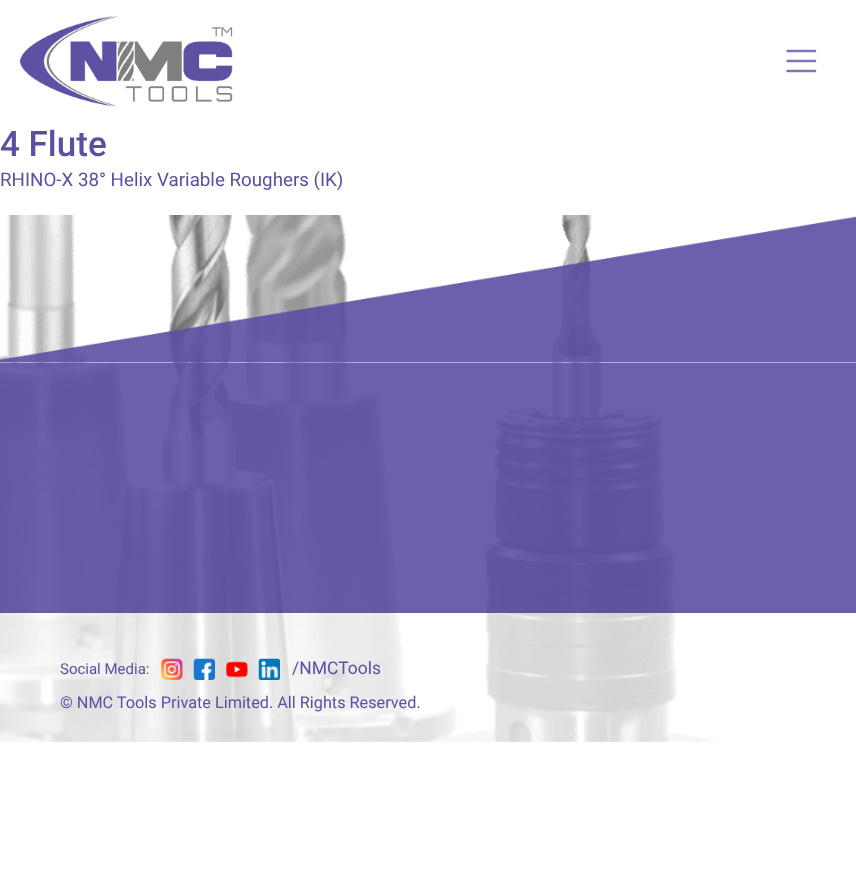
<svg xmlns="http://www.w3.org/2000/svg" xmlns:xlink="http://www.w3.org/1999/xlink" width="856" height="891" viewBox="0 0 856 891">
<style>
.cls-1{font:500 35px Roboto;fill:#5b4fa2}
.cls-2{font:18.75px Roboto;fill:#5b4fa2}
.cls-3{font:15px Roboto;fill:#5b4fa2}
.cls-4{font:17.5px Roboto;fill:#5b4fa2}
.cls-5{font:16.25px Roboto;fill:#5b4fa2}
</style>
<rect width="100%" height="100%" fill="#ffffff"/>
<image xlink:href="image0.png" x="20" y="16" width="213" height="91"/>
<path fill="none" stroke="#7c76b7" stroke-width="2.5" stroke-linecap="round" d="M787.5 51H815M787.5 61H815M787.5 71H815"/>
<image xlink:href="image1.png" x="0" y="215" width="718" height="527"/>
<image xlink:href="image2.png" x="0" y="216" width="856" height="147"/>
<rect fill="#5b4fa2" fill-opacity="0.9" x="0" y="363" width="856" height="250"/>
<rect fill="#ffffff" fill-opacity="0.7" x="0" y="613" width="718" height="128"/>
<image xlink:href="image3.png" x="161" y="658" width="22" height="22"/>
<image xlink:href="image4.png" x="193" y="658" width="22" height="22"/>
<image xlink:href="image5.png" x="226" y="661" width="22" height="17"/>
<image xlink:href="image6.png" x="258" y="658" width="22" height="22"/>
<text class="cls-1" x="0" y="156">4 Flute</text>
<text class="cls-2" x="0" y="186">RHINO-X 38° Helix Variable Roughers (IK)</text>
<text class="cls-3" x="60" y="674">Social Media:</text>
<text class="cls-4" x="292" y="674">/NMCTools</text>
<text class="cls-5" x="60" y="708">© NMC Tools Private Limited. All Rights Reserved.</text>
</svg>
